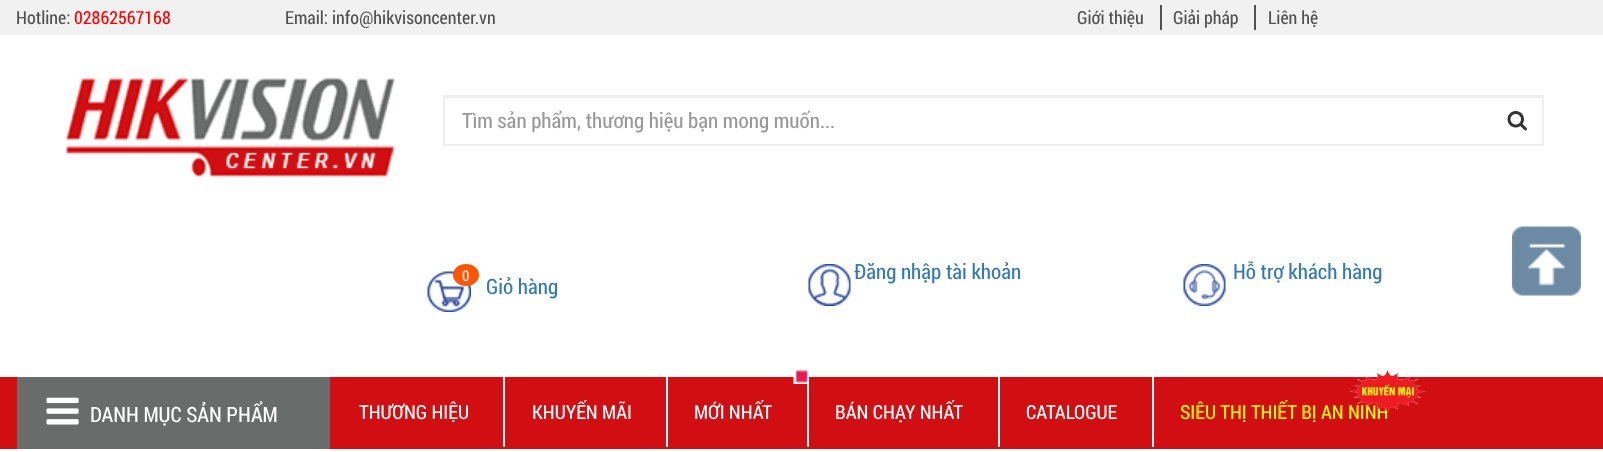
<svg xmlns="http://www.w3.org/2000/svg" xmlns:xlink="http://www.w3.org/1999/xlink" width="1603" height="452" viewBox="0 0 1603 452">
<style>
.cls-1{font:18px Roboto Condensed;fill:#515151}
.cls-2{font:18px Roboto Condensed;fill:#ff0000}
.cls-3{font:21px Roboto Condensed;fill:#999999}
.cls-4{font:15px Roboto Condensed;fill:#ffffff}
.cls-5{font:21px Roboto Condensed;fill:#337ab7}
.cls-6{font:21px Roboto Condensed;fill:#ffffff}
.cls-7{font:19.5px Roboto Condensed;fill:#ffffff}
.cls-8{font:19.5px Roboto Condensed;fill:#ffff00}
</style>
<rect width="100%" height="100%" fill="#ffffff"/>
<rect fill="#f1f1f1" x="0" y="0" width="1603" height="35"/>
<rect fill="#515151" x="1160" y="5" width="2" height="25"/>
<rect fill="#515151" x="1254" y="5" width="2" height="25"/>
<image xlink:href="image0.png" x="65" y="77" width="330" height="101"/>
<rect fill="#ececec" x="444" y="97" width="1098" height="1"/>
<rect fill="none" stroke="#eeeeee" stroke-width="2" x="444" y="96" width="1099" height="49"/>
<image xlink:href="image1.png" x="1507" y="111" width="20" height="20"/>
<image xlink:href="image2.png" x="427" y="271" width="44" height="41"/>
<ellipse fill="#ff5501" cx="466" cy="275" rx="13" ry="11"/>
<image xlink:href="image3.png" x="808" y="264" width="43" height="42"/>
<image xlink:href="image4.png" x="1183" y="264" width="43" height="42"/>
<rect fill="#d10f12" x="0" y="377" width="1603" height="72"/>
<rect fill="#6a6b6b" x="17" y="377" width="313" height="72"/>
<image xlink:href="image5.png" x="46" y="397" width="33" height="28"/>
<rect fill="#ffffff" x="503" y="377" width="2" height="70"/>
<rect fill="#ffffff" x="666" y="377" width="2" height="70"/>
<image xlink:href="image6.png" x="793" y="370" width="16" height="14"/>
<rect fill="#ffffff" x="807" y="377" width="2" height="70"/>
<rect fill="#ffffff" x="998" y="377" width="2" height="70"/>
<rect fill="#ffffff" x="1152" y="377" width="2" height="70"/>
<image xlink:href="image8.png" x="1512" y="226" width="69" height="70"/>
<text class="cls-1" x="16" y="24">Hotline:</text>
<text class="cls-2" x="74" y="24">02862567168</text>
<text class="cls-1" x="285" y="24">Email: info@hikvisoncenter.vn</text>
<text class="cls-1" x="1077" y="24">Giới thiệu</text>
<text class="cls-1" x="1173" y="24">Giải pháp</text>
<text class="cls-1" x="1268" y="24">Liên hệ</text>
<text class="cls-3" x="462" y="128">Tìm sản phẩm, thương hiệu bạn mong muốn...</text>
<text class="cls-4" x="462" y="281">0</text>
<text class="cls-5" x="486" y="294">Giỏ hàng</text>
<text class="cls-5" x="854" y="279">Đăng nhập tài khoản</text>
<text class="cls-5" x="1233" y="279">Hỗ trợ khách hàng</text>
<text class="cls-6" x="90" y="422">DANH MỤC SẢN PHẨM</text>
<text class="cls-7" x="359" y="419">THƯƠNG HIỆU</text>
<text class="cls-7" x="532" y="419">KHUYẾN MÃI</text>
<text class="cls-7" x="694" y="419">MỚI NHẤT</text>
<text class="cls-7" x="835" y="419">BÁN CHẠY NHẤT</text>
<text class="cls-7" x="1026" y="419">CATALOGUE</text>
<text class="cls-8" x="1180" y="419">SIÊU THỊ THIẾT BỊ AN NINH</text>
<image xlink:href="image7.png" x="1350" y="370" width="75" height="43"/>
</svg>
